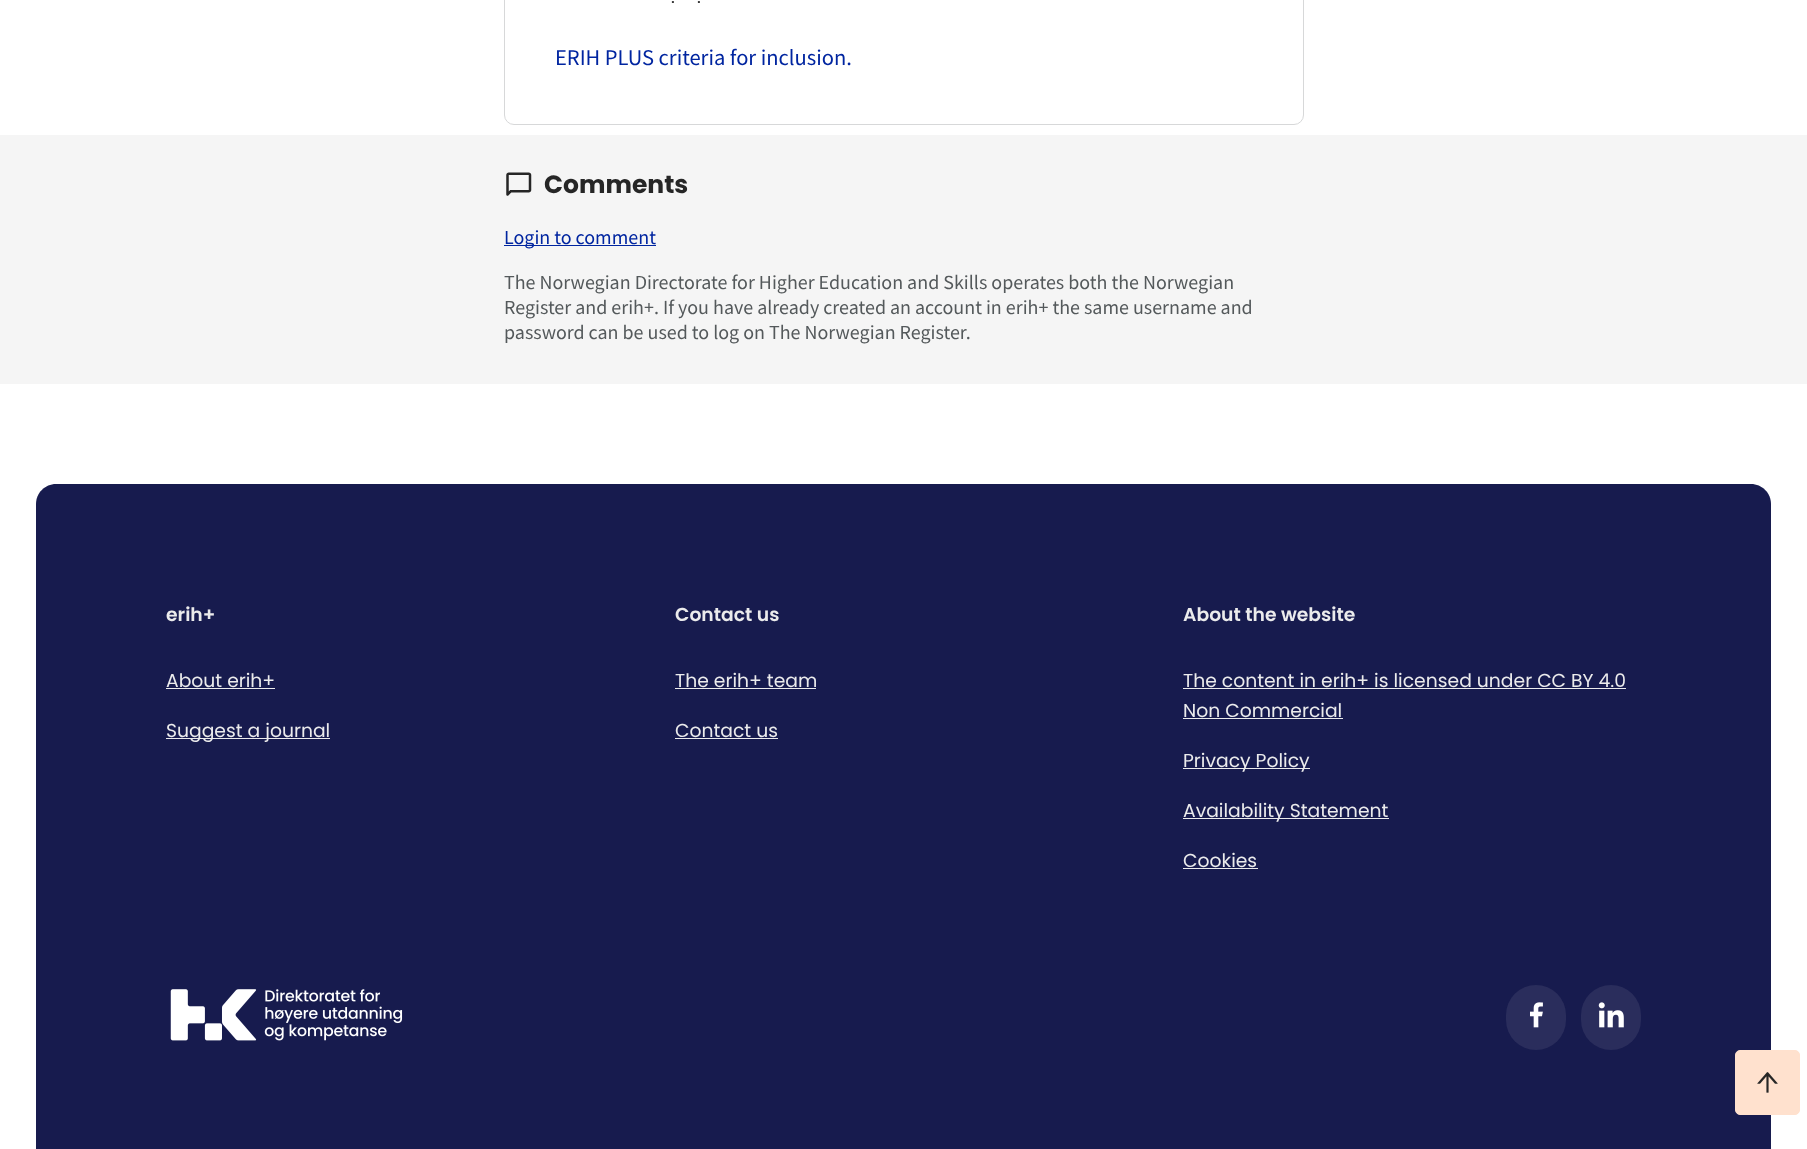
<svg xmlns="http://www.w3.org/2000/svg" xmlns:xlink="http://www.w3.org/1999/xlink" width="1807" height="1149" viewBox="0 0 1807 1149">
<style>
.cls-1{font:18px Poppins;fill:#262626}
.cls-2{font:22.5px Source Sans Pro;fill:#0025a0}
.cls-3{font:bold 25px Poppins;fill:#262626}
.cls-4{font:20px Source Sans Pro;fill:#0025a0}
.cls-5{font:20px Source Sans Pro;fill:#54595b}
.cls-6{font:600 18.75px Poppins;fill:#ebebec}
.cls-7{font:18.75px Poppins;fill:#ebebec}
</style>
<rect width="100%" height="100%" fill="#ffffff"/>
<rect fill="none" stroke="#d7d8d9" x="504.5" y="-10.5" width="799" height="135" rx="9.5"/>
<rect fill="#f5f5f5" x="0" y="135" width="1807" height="249"/>
<image xlink:href="image0.png" x="506" y="172" width="26" height="24"/>
<rect fill="#0025a0" x="504" y="245" width="152" height="1"/>
<path fill="#171b4e" d="M56 484H1751C1762 484 1771 493 1771 504V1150H36V504C36 493 45 484 56 484Z"/>
<rect fill="#ebebec" x="166" y="688" width="109" height="1"/>
<rect fill="#ebebec" x="166" y="738" width="164" height="1"/>
<rect fill="#ebebec" x="675" y="688" width="141" height="1"/>
<rect fill="#ebebec" x="675" y="738" width="103" height="1"/>
<rect fill="#ebebec" x="1183" y="688" width="443" height="1"/>
<rect fill="#ebebec" x="1183" y="718" width="160" height="1"/>
<rect fill="#ebebec" x="1183" y="768" width="127" height="1"/>
<rect fill="#ebebec" x="1183" y="818" width="206" height="1"/>
<rect fill="#ebebec" x="1183" y="868" width="75" height="1"/>
<image xlink:href="image1.png" x="170" y="989" width="233" height="52"/>
<rect fill="#2a2d5c" x="1506" y="985" width="60" height="65" rx="30"/>
<image xlink:href="image2.png" x="1530" y="1002" width="13" height="26"/>
<rect fill="#2a2d5c" x="1581" y="985" width="60" height="65" rx="30"/>
<image xlink:href="image3.png" x="1598" y="1002" width="26" height="26"/>
<rect fill="#ffe1ce" stroke="#ffe1ce" x="1735.5" y="1050.5" width="64" height="64" rx="4.5"/>
<image xlink:href="image4.png" x="1757" y="1072" width="21" height="21"/>
<text class="cls-1" x="671" y="3">.</text>
<text class="cls-1" x="697" y="3">.</text>
<text class="cls-2" x="555" y="65">ERIH PLUS criteria for inclusion.</text>
<text class="cls-3" x="544" y="193">Comments</text>
<text class="cls-4" x="504" y="244">Login to comment</text>
<text class="cls-5"><tspan x="504" y="289">The Norwegian Directorate for Higher Education and Skills operates both the Norwegian</tspan><tspan x="504" y="314">Register and erih+. If you have already created an account in erih+ the same username and</tspan><tspan x="504" y="339">password can be used to log on The Norwegian Register.</tspan></text>
<text class="cls-6" x="166" y="621">erih+</text>
<text class="cls-7" x="166" y="687">About erih+</text>
<text class="cls-7" x="166" y="737">Suggest a journal</text>
<text class="cls-6" x="675" y="621">Contact us</text>
<text class="cls-7" x="675" y="687">The erih+ team</text>
<text class="cls-7" x="675" y="737">Contact us</text>
<text class="cls-6" x="1183" y="621">About the website</text>
<text class="cls-7"><tspan x="1183" y="687">The content in erih+ is licensed under CC BY 4.0</tspan><tspan x="1183" y="717">Non Commercial</tspan></text>
<text class="cls-7" x="1183" y="767">Privacy Policy</text>
<text class="cls-7" x="1183" y="817">Availability Statement</text>
<text class="cls-7" x="1183" y="867">Cookies</text>
</svg>
